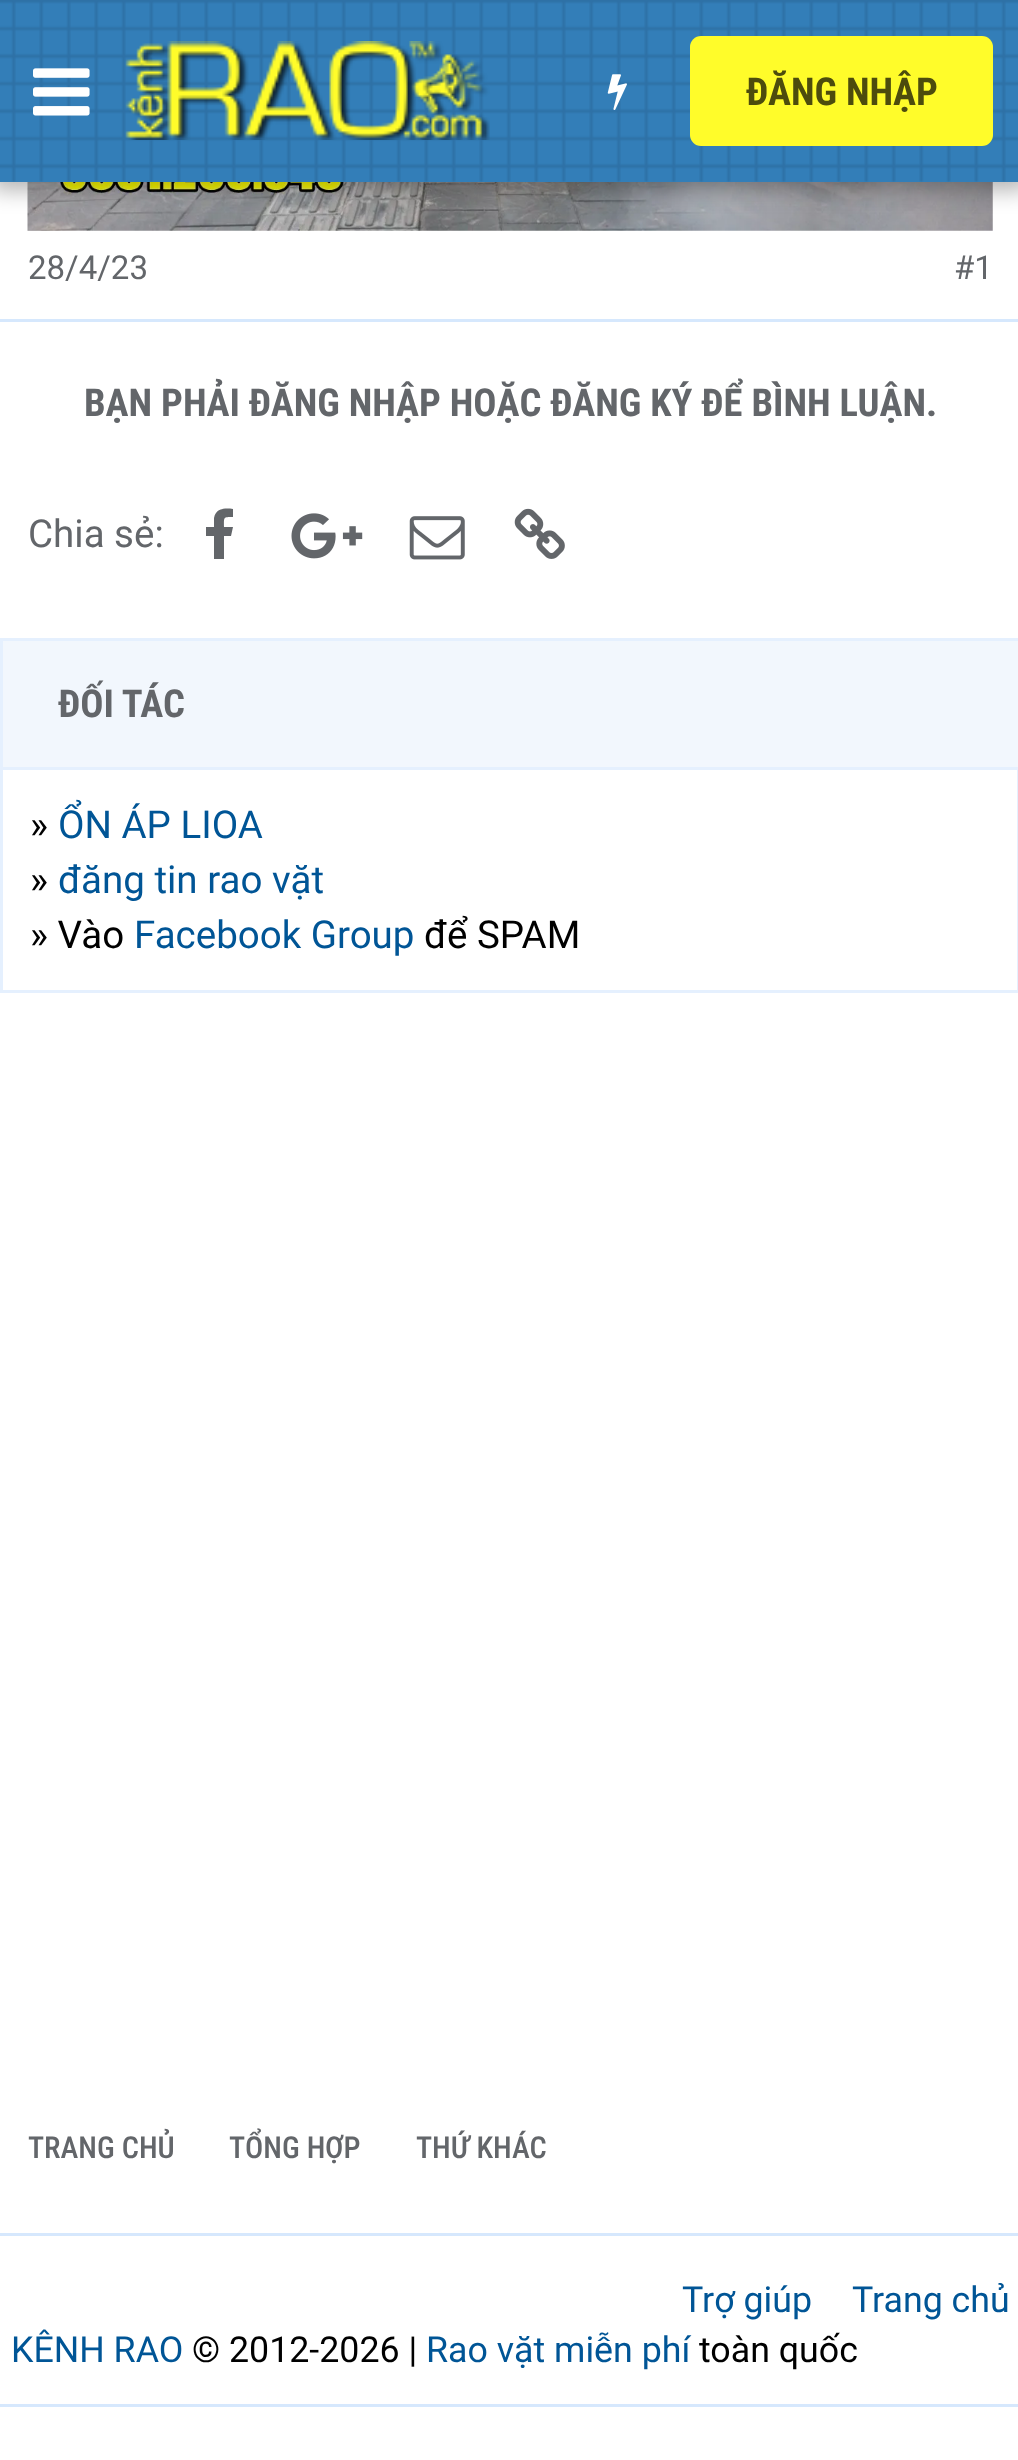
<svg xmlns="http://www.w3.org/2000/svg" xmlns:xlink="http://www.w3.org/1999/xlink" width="1018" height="2460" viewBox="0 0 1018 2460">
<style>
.cls-1{font:bold 38.5px Roboto Condensed;fill:#4d4c0d}
.cls-2{font:33px Roboto;fill:#63666a}
.cls-3{font:bold 38.5px Roboto Condensed;fill:#63666a}
.cls-4{font:38.5px Roboto;fill:#63666a}
.cls-5{font:38.5px Roboto;fill:#000000}
.cls-6{font:38.5px Roboto;fill:#005596}
.cls-7{font:500 30.25px Roboto Condensed;fill:#63666a}
.cls-8{font:35.75px Roboto;fill:#005596}
.cls-9{font:35.75px Roboto;fill:#000000}
</style>
<rect width="100%" height="100%" fill="#ffffff"/>
<image xlink:href="image4.png" x="27" y="182" width="966" height="49"/>
<rect fill="#000000" fill-opacity="0.3" filter="blur(11px)" x="-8" y="-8" width="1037" height="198"/>
<rect fill="#337eb8" x="0" y="180" width="1018" height="2"/>
<image xlink:href="image0.png" x="0" y="0" width="1018" height="182"/>
<image xlink:href="image1.png" x="33" y="68" width="57" height="48"/>
<image xlink:href="image2.png" x="125" y="41" width="365" height="99"/>
<image xlink:href="image3.png" x="607" y="74" width="20" height="36"/>
<rect fill="#fffc2a" x="690" y="36" width="303" height="110" rx="11"/>
<rect fill="#d6e8fd" x="0" y="319" width="1018" height="3"/>
<path fill="#63666a" d="M233 509V517C223 517 224 517 224 527H233L231 536H224V559H214V536H206V527H214V518C216 508 225 508 233 509Z"/>
<image xlink:href="image5.png" x="291" y="513" width="72" height="46"/>
<image xlink:href="image6.png" x="409" y="516" width="56" height="44"/>
<image xlink:href="image7.png" x="514" y="508" width="51" height="51"/>
<rect fill="none" stroke="#e5f0fe" stroke-width="3" x="1.5" y="639.5" width="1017" height="352"/>
<rect fill="#f2f7fd" x="3" y="641" width="1015" height="126"/>
<rect fill="#e5f0fe" x="3" y="767" width="1015" height="3"/>
<rect fill="#d6e8fd" x="0" y="2233" width="1018" height="3"/>
<rect fill="#d6e8fd" x="0" y="2404" width="1018" height="3"/>
<text class="cls-1" x="746" y="105">ĐĂNG NHẬP</text>
<text class="cls-2" x="28" y="279">28/4/23</text>
<text class="cls-2" x="954" y="279">#1</text>
<text class="cls-3" x="84" y="416">BẠN PHẢI ĐĂNG NHẬP HOẶC ĐĂNG KÝ ĐỂ BÌNH LUẬN.</text>
<text class="cls-4" x="28" y="547">Chia sẻ:</text>
<text class="cls-3" x="58" y="717">ĐỐI TÁC</text>
<text class="cls-5" x="30" y="838">»</text>
<text class="cls-6" x="58" y="838">ỔN ÁP LIOA</text>
<text class="cls-5" x="30" y="893">»</text>
<text class="cls-6" x="58" y="893">đăng tin rao vặt</text>
<text class="cls-5" x="30" y="948">» Vào</text>
<text class="cls-6" x="134" y="948">Facebook Group</text>
<text class="cls-5" x="424" y="948">để SPAM</text>
<text class="cls-7" x="28" y="2158">TRANG CHỦ</text>
<text class="cls-7" x="229" y="2158">TỔNG HỢP</text>
<text class="cls-7" x="416" y="2158">THỨ KHÁC</text>
<text class="cls-8" x="682" y="2312">Trợ giúp</text>
<text class="cls-8" x="852" y="2312">Trang chủ</text>
<text class="cls-8" x="11" y="2362">KÊNH RAO</text>
<text class="cls-9" x="192" y="2362">© 2012-2026 |</text>
<text class="cls-8" x="426" y="2362">Rao vặt miễn phí</text>
<text class="cls-9" x="699" y="2362">toàn quốc</text>
</svg>
